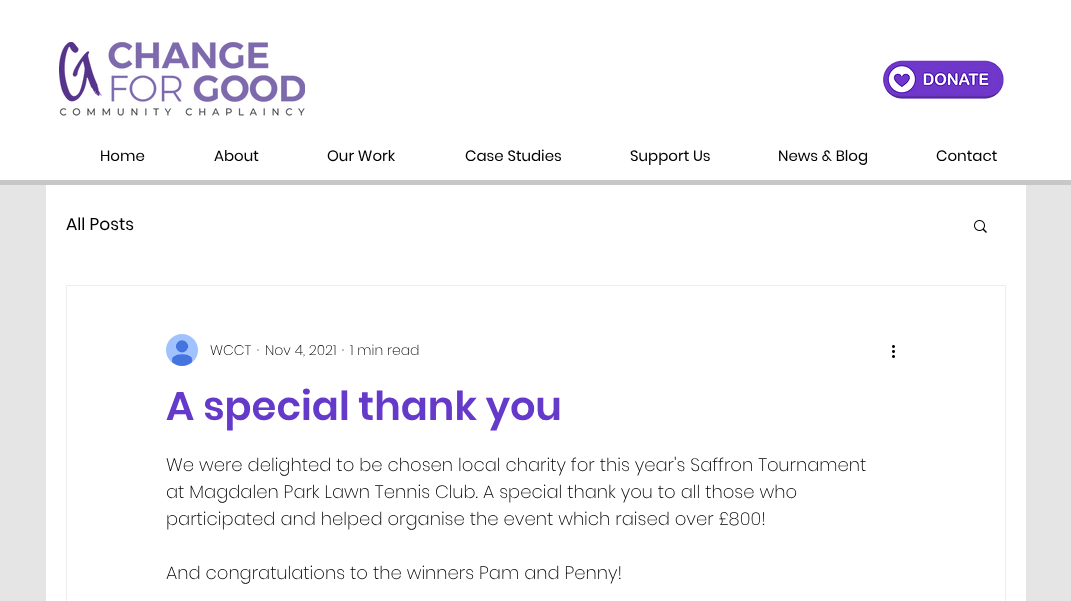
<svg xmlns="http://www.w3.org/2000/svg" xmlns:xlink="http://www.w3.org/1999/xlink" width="1071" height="601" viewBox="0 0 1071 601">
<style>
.cls-1{font:15px Poppins;fill:#000000}
.cls-2{font:17px Poppins;fill:#000000}
.cls-3{font:200 14px Poppins;fill:#000000}
.cls-4{font:600 40px Poppins;fill:#653aca}
.cls-5{font:200 18px Poppins;fill:#000000}
</style>
<rect width="100%" height="100%" fill="#e5e5e5"/>
<rect fill="#ffffff" x="0" y="0" width="1071" height="180"/>
<rect fill="#c7c7c7" x="0" y="180" width="1071" height="5"/>
<image xlink:href="image0.png" x="59" y="42" width="246" height="74"/>
<image xlink:href="image1.png" x="883" y="60" width="121" height="39"/>
<rect fill="#ffffff" x="46" y="185" width="980" height="416"/>
<image xlink:href="image2.png" x="974" y="220" width="13" height="13"/>
<rect fill="none" stroke="#eeecec" x="66.5" y="285.5" width="939" height="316"/>
<image xlink:href="image3.png" x="166" y="334" width="32" height="32"/>
<image xlink:href="image4.png" x="892" y="345" width="3" height="13"/>
<text class="cls-1" x="100" y="161">Home</text>
<text class="cls-1" x="214" y="161">About</text>
<text class="cls-1" x="327" y="161">Our Work</text>
<text class="cls-1" x="465" y="161">Case Studies</text>
<text class="cls-1" x="630" y="161">Support Us</text>
<text class="cls-1" x="778" y="161">News &amp; Blog</text>
<text class="cls-1" x="936" y="161">Contact</text>
<text class="cls-2" x="66" y="230">All Posts</text>
<text class="cls-3" x="210" y="355">WCCT</text>
<text class="cls-3" x="257" y="355">·</text>
<text class="cls-3" x="265" y="355">Nov 4, 2021</text>
<text class="cls-3" x="342" y="355">·</text>
<text class="cls-3" x="350" y="355">1 min read</text>
<text class="cls-4" x="166" y="420">A special thank you</text>
<text class="cls-5"><tspan x="166" y="471">We were delighted to be chosen local charity for this year's Saffron Tournament</tspan><tspan x="166" y="498">at Magdalen Park Lawn Tennis Club. A special thank you to all those who</tspan><tspan x="166" y="525">participated and helped organise the event which raised over £800!</tspan></text>
<text class="cls-5" x="166" y="579">And congratulations to the winners Pam and Penny!</text>
</svg>
